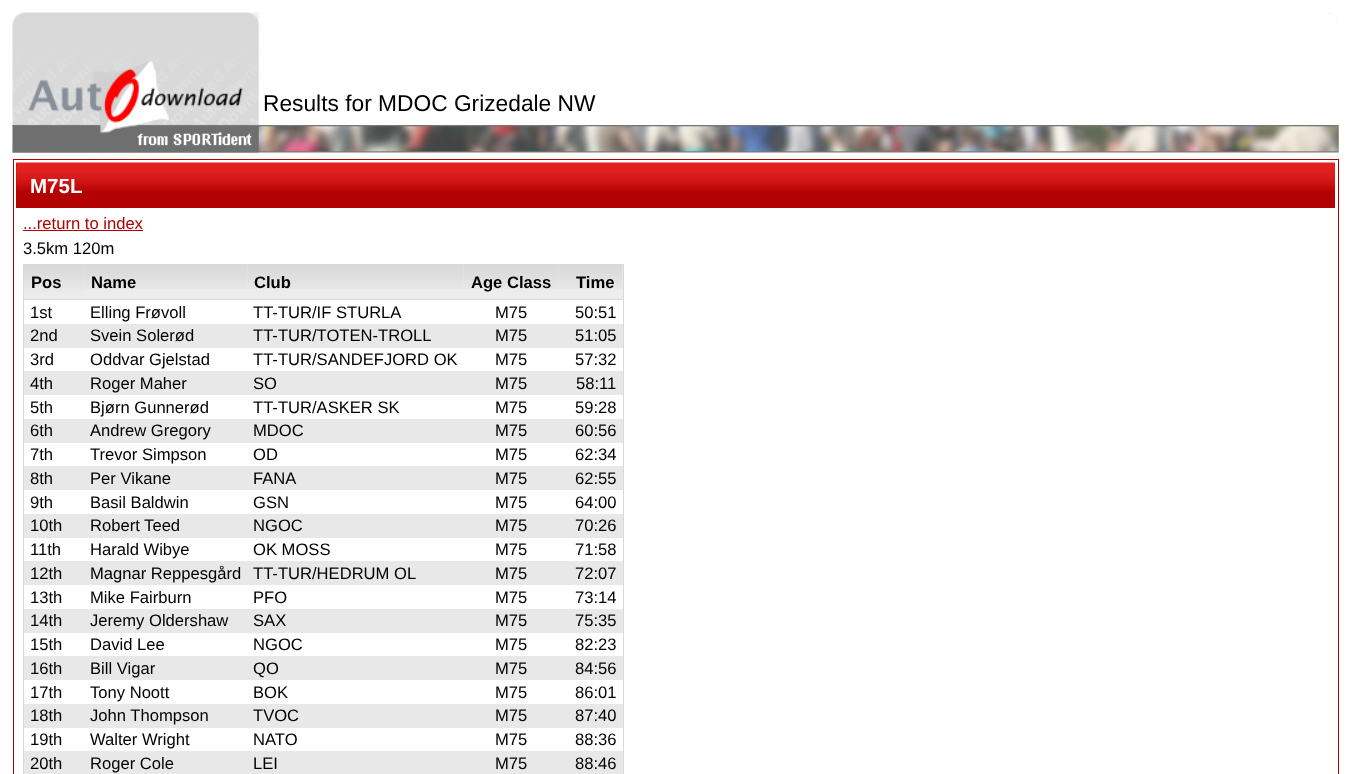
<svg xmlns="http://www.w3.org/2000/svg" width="1351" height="774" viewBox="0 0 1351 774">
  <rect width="100%" height="100%" fill="rgb(255,255,255)"/>
  <image x="12" y="125" width="1327" height="28" href="pic3.png"/>
  <image x="12" y="12" width="247" height="141" href="pic1.png"/>
  <image x="1327" y="12" width="12" height="12" href="pic2.png"/>
  <text x="263" y="111" font-family="Liberation Sans" font-size="22.75" fill="rgb(0,0,0)">Results for MDOC Grizedale NW</text>
  <rect x="13.5" y="159.5" width="1325" height="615" fill="none" stroke="rgb(179,2,2)"/>
  <rect x="16" y="163" width="1319" height="45" fill="rgb(179,2,2)"/>
  <image x="16" y="162" width="1319" height="29" href="pic4.png"/>
  <text x="30" y="193" font-family="Liberation Sans" font-size="20.5" font-weight="bold" fill="rgb(255,255,255)">M75L</text>
  <text x="23" y="229" font-family="Liberation Sans" font-size="16.6" fill="rgb(177,0,0)">...return to index</text>
  <rect x="23" y="230" width="120" height="1" fill="rgb(177,0,0)"/>
  <text x="23" y="254" font-family="Liberation Sans" font-size="16.6" fill="rgb(0,0,0)">3.5km 120m</text>
  <rect x="23.5" y="264.5" width="600" height="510" fill="none" stroke="rgb(217,217,217)"/>
  <rect x="24" y="265" width="599" height="34" fill="rgb(237,237,237)"/>
  <image x="23" y="265" width="61" height="32" href="pic5.png"/>
  <rect x="24" y="299" width="599" height="1" fill="rgb(217,217,217)"/>
  <text x="31" y="288" font-family="Liberation Sans" font-size="16.6" font-weight="bold" fill="rgb(0,0,0)">Pos</text>
  <image x="84" y="265" width="164" height="24" href="pic6.png"/>
  <text x="91" y="288" font-family="Liberation Sans" font-size="16.6" font-weight="bold" fill="rgb(0,0,0)">Name</text>
  <image x="247" y="265" width="217" height="24" href="pic7.png"/>
  <text x="254" y="288" font-family="Liberation Sans" font-size="16.6" font-weight="bold" fill="rgb(0,0,0)">Club</text>
  <image x="464" y="265" width="95" height="24" href="pic8.png"/>
  <text x="471" y="288" font-family="Liberation Sans" font-size="16.6" font-weight="bold" fill="rgb(0,0,0)">Age Class</text>
  <image x="559" y="265" width="64" height="24" href="pic9.png"/>
  <text x="576" y="288" font-family="Liberation Sans" font-size="16.6" font-weight="bold" fill="rgb(0,0,0)">Time</text>
  <g font-family="Liberation Sans" font-size="16.6" fill="rgb(0,0,0)">
    <text x="30" y="318">1st</text>
    <text x="90" y="318">Elling Frøvoll</text>
    <text x="253" y="318">TT-TUR/IF STURLA</text>
    <text x="495" y="318">M75</text>
    <text x="575" y="318">50:51</text>
  </g>
  <rect x="24" y="324" width="599" height="24" fill="rgb(232,232,232)"/>
  <g font-family="Liberation Sans" font-size="16.6" fill="rgb(0,0,0)">
    <text x="30" y="341">2nd</text>
    <text x="90" y="341">Svein Solerød</text>
    <text x="253" y="341">TT-TUR/TOTEN-TROLL</text>
    <text x="495" y="341">M75</text>
    <text x="575" y="341">51:05</text>
    <text x="30" y="365">3rd</text>
    <text x="90" y="365">Oddvar Gjelstad</text>
    <text x="253" y="365">TT-TUR/SANDEFJORD OK</text>
    <text x="495" y="365">M75</text>
    <text x="575" y="365">57:32</text>
  </g>
  <rect x="24" y="371" width="599" height="24" fill="rgb(232,232,232)"/>
  <g font-family="Liberation Sans" font-size="16.6" fill="rgb(0,0,0)">
    <text x="30" y="389">4th</text>
    <text x="90" y="389">Roger Maher</text>
    <text x="253" y="389">SO</text>
    <text x="495" y="389">M75</text>
    <text x="576" y="389">58:11</text>
    <text x="30" y="413">5th</text>
    <text x="90" y="413">Bjørn Gunnerød</text>
    <text x="253" y="413">TT-TUR/ASKER SK</text>
    <text x="495" y="413">M75</text>
    <text x="575" y="413">59:28</text>
  </g>
  <rect x="24" y="419" width="599" height="24" fill="rgb(232,232,232)"/>
  <g font-family="Liberation Sans" font-size="16.6" fill="rgb(0,0,0)">
    <text x="30" y="436">6th</text>
    <text x="90" y="436">Andrew Gregory</text>
    <text x="253" y="436">MDOC</text>
    <text x="495" y="436">M75</text>
    <text x="575" y="436">60:56</text>
    <text x="30" y="460">7th</text>
    <text x="90" y="460">Trevor Simpson</text>
    <text x="253" y="460">OD</text>
    <text x="495" y="460">M75</text>
    <text x="575" y="460">62:34</text>
  </g>
  <rect x="24" y="466" width="599" height="24" fill="rgb(232,232,232)"/>
  <g font-family="Liberation Sans" font-size="16.6" fill="rgb(0,0,0)">
    <text x="30" y="484">8th</text>
    <text x="90" y="484">Per Vikane</text>
    <text x="253" y="484">FANA</text>
    <text x="495" y="484">M75</text>
    <text x="575" y="484">62:55</text>
    <text x="30" y="508">9th</text>
    <text x="90" y="508">Basil Baldwin</text>
    <text x="253" y="508">GSN</text>
    <text x="495" y="508">M75</text>
    <text x="575" y="508">64:00</text>
  </g>
  <rect x="24" y="514" width="599" height="24" fill="rgb(232,232,232)"/>
  <g font-family="Liberation Sans" font-size="16.6" fill="rgb(0,0,0)">
    <text x="30" y="531">10th</text>
    <text x="90" y="531">Robert Teed</text>
    <text x="253" y="531">NGOC</text>
    <text x="495" y="531">M75</text>
    <text x="575" y="531">70:26</text>
    <text x="30" y="555">11th</text>
    <text x="90" y="555">Harald Wibye</text>
    <text x="253" y="555">OK MOSS</text>
    <text x="495" y="555">M75</text>
    <text x="575" y="555">71:58</text>
  </g>
  <rect x="24" y="561" width="599" height="24" fill="rgb(232,232,232)"/>
  <g font-family="Liberation Sans" font-size="16.6" fill="rgb(0,0,0)">
    <text x="30" y="579">12th</text>
    <text x="90" y="579">Magnar Reppesgård</text>
    <text x="253" y="579">TT-TUR/HEDRUM OL</text>
    <text x="495" y="579">M75</text>
    <text x="575" y="579">72:07</text>
    <text x="30" y="603">13th</text>
    <text x="90" y="603">Mike Fairburn</text>
    <text x="253" y="603">PFO</text>
    <text x="495" y="603">M75</text>
    <text x="575" y="603">73:14</text>
  </g>
  <rect x="24" y="609" width="599" height="24" fill="rgb(232,232,232)"/>
  <g font-family="Liberation Sans" font-size="16.6" fill="rgb(0,0,0)">
    <text x="30" y="626">14th</text>
    <text x="90" y="626">Jeremy Oldershaw</text>
    <text x="253" y="626">SAX</text>
    <text x="495" y="626">M75</text>
    <text x="575" y="626">75:35</text>
    <text x="30" y="650">15th</text>
    <text x="90" y="650">David Lee</text>
    <text x="253" y="650">NGOC</text>
    <text x="495" y="650">M75</text>
    <text x="575" y="650">82:23</text>
  </g>
  <rect x="24" y="656" width="599" height="24" fill="rgb(232,232,232)"/>
  <g font-family="Liberation Sans" font-size="16.6" fill="rgb(0,0,0)">
    <text x="30" y="674">16th</text>
    <text x="90" y="674">Bill Vigar</text>
    <text x="253" y="674">QO</text>
    <text x="495" y="674">M75</text>
    <text x="575" y="674">84:56</text>
    <text x="30" y="698">17th</text>
    <text x="90" y="698">Tony Noott</text>
    <text x="253" y="698">BOK</text>
    <text x="495" y="698">M75</text>
    <text x="575" y="698">86:01</text>
  </g>
  <rect x="24" y="704" width="599" height="24" fill="rgb(232,232,232)"/>
  <g font-family="Liberation Sans" font-size="16.6" fill="rgb(0,0,0)">
    <text x="30" y="721">18th</text>
    <text x="90" y="721">John Thompson</text>
    <text x="253" y="721">TVOC</text>
    <text x="495" y="721">M75</text>
    <text x="575" y="721">87:40</text>
    <text x="30" y="745">19th</text>
    <text x="90" y="745">Walter Wright</text>
    <text x="253" y="745">NATO</text>
    <text x="495" y="745">M75</text>
    <text x="575" y="745">88:36</text>
  </g>
  <rect x="24" y="751" width="599" height="23" fill="rgb(232,232,232)"/>
  <g font-family="Liberation Sans" font-size="16.6" fill="rgb(0,0,0)">
    <text x="30" y="769">20th</text>
    <text x="90" y="769">Roger Cole</text>
    <text x="253" y="769">LEI</text>
    <text x="495" y="769">M75</text>
    <text x="575" y="769">88:46</text>
  </g>
</svg>
